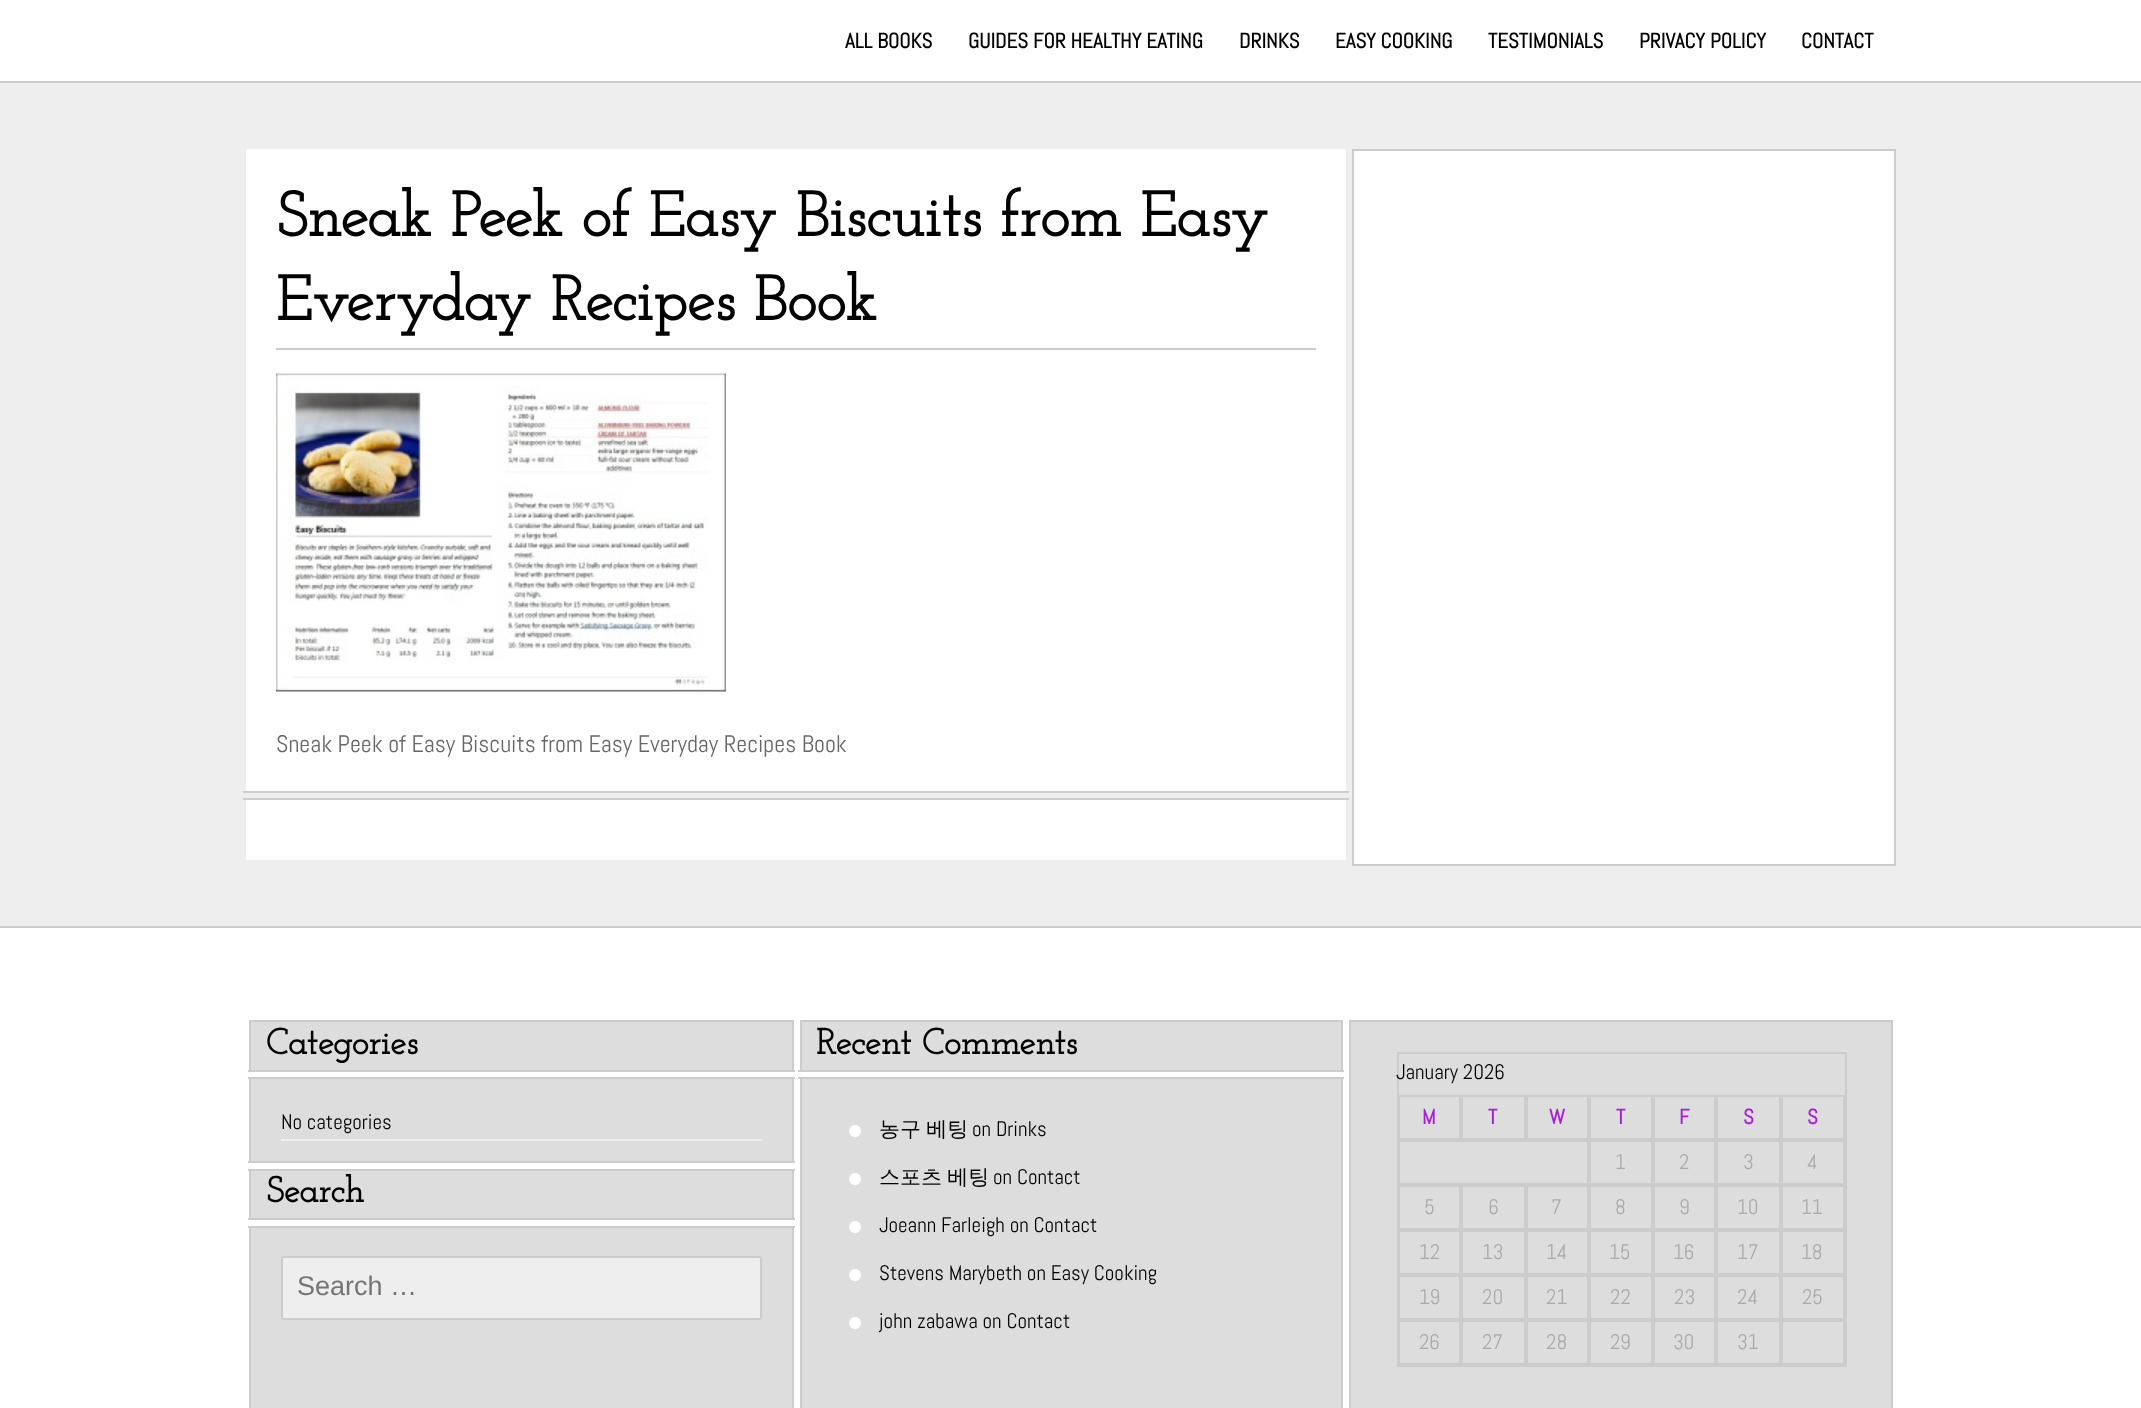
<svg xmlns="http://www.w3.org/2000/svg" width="2141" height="1408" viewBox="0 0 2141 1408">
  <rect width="100%" height="100%" fill="rgb(238,238,238)"/>
  <rect x="0" y="0" width="2141" height="81" fill="rgb(255,255,255)"/>
  <rect x="0" y="81" width="2141" height="2" fill="rgb(204,204,204)"/>
  <g font-family="Abel" font-size="21" font-weight="bold" fill="rgb(0,0,0)">
    <text x="845" y="48">ALL BOOKS</text>
    <text x="968" y="48">GUIDES FOR HEALTHY EATING</text>
    <text x="1239" y="48">DRINKS</text>
    <text x="1335" y="48">EASY COOKING</text>
    <text x="1488" y="48">TESTIMONIALS</text>
    <text x="1639" y="48">PRIVACY POLICY</text>
    <text x="1801" y="48">CONTACT</text>
  </g>
  <rect x="246" y="149" width="1100" height="711" fill="rgb(255,255,255)"/>
  <rect x="276" y="348" width="1040" height="2" fill="rgb(204,204,204)"/>
  <g font-family="Josefin Slab" font-size="63" font-weight="bold" fill="rgb(0,0,0)">
    <text>
      <tspan x="276" y="236">Sneak Peek of Easy Biscuits from Easy</tspan>
      <tspan x="276" y="320">Everyday Recipes Book</tspan>
    </text>
  </g>
  <image x="276" y="373" width="450" height="319" href="pic1.png"/>
  <text x="276" y="752" font-family="Abel" font-size="24" fill="rgb(102,102,102)">Sneak Peek of Easy Biscuits from Easy Everyday Recipes Book</text>
  <rect x="243" y="793" width="1106" height="5" fill="rgb(238,238,238)"/>
  <rect x="243" y="791" width="1106" height="2" fill="rgb(204,204,204)"/>
  <rect x="243" y="798" width="1106" height="2" fill="rgb(204,204,204)"/>
  <rect x="1353" y="150" width="542" height="715" fill="rgb(255,255,255)" stroke="rgb(204,204,204)" stroke-width="2"/>
  <rect x="0" y="928" width="2141" height="480" fill="rgb(255,255,255)"/>
  <rect x="0" y="926" width="2141" height="2" fill="rgb(204,204,204)"/>
  <rect x="250" y="1021" width="543" height="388" fill="rgb(221,221,221)" stroke="rgb(204,204,204)" stroke-width="2"/>
  <text x="266" y="1054" font-family="Josefin Slab" font-size="36" font-weight="bold" fill="rgb(0,0,0)">Categories</text>
  <rect x="248" y="1072" width="547" height="5" fill="rgb(255,255,255)"/>
  <rect x="248" y="1070" width="547" height="2" fill="rgb(204,204,204)"/>
  <rect x="248" y="1077" width="547" height="2" fill="rgb(204,204,204)"/>
  <rect x="281" y="1139" width="481" height="2" fill="rgb(238,238,238)"/>
  <text x="281" y="1129" font-family="Abel" font-size="21" fill="rgb(0,0,0)">No categories</text>
  <rect x="248" y="1163" width="547" height="6" fill="rgb(255,255,255)"/>
  <rect x="248" y="1161" width="547" height="2" fill="rgb(204,204,204)"/>
  <rect x="248" y="1169" width="547" height="2" fill="rgb(204,204,204)"/>
  <text x="266" y="1202" font-family="Josefin Slab" font-size="36" font-weight="bold" fill="rgb(0,0,0)">Search</text>
  <rect x="248" y="1220" width="547" height="6" fill="rgb(255,255,255)"/>
  <rect x="248" y="1218" width="547" height="2" fill="rgb(204,204,204)"/>
  <rect x="248" y="1226" width="547" height="2" fill="rgb(204,204,204)"/>
  <rect x="282" y="1257" width="479" height="62" rx="2" fill="rgb(238,238,238)" stroke="rgb(204,204,204)" stroke-width="2"/>
  <text x="297" y="1295" font-family="Liberation Sans" font-size="27" fill="rgb(117,117,117)">Search …</text>
  <rect x="801" y="1021" width="541" height="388" fill="rgb(221,221,221)" stroke="rgb(204,204,204)" stroke-width="2"/>
  <text x="816" y="1054" font-family="Josefin Slab" font-size="36" font-weight="bold" fill="rgb(0,0,0)">Recent Comments</text>
  <rect x="798" y="1072" width="546" height="5" fill="rgb(255,255,255)"/>
  <rect x="798" y="1070" width="546" height="2" fill="rgb(204,204,204)"/>
  <rect x="798" y="1077" width="546" height="2" fill="rgb(204,204,204)"/>
  <image x="849" y="1125" width="12" height="12" href="pic2.png"/>
  <text x="879" y="1136" word-spacing="-1" font-family="WenQuanYi Zen Hei" font-size="21" font-weight="500" fill="rgb(0,0,0)">농구 베팅</text>
  <text x="972" y="1136" font-family="Abel" font-size="21" fill="rgb(0,0,0)">on Drinks</text>
  <image x="849" y="1173" width="12" height="12" href="pic2.png"/>
  <text x="879" y="1184" word-spacing="-1" font-family="WenQuanYi Zen Hei" font-size="21" font-weight="500" fill="rgb(0,0,0)">스포츠 베팅</text>
  <text x="993" y="1184" font-family="Abel" font-size="21" fill="rgb(0,0,0)">on Contact</text>
  <image x="849" y="1221" width="12" height="12" href="pic2.png"/>
  <text x="879" y="1232" font-family="Abel" font-size="21" fill="rgb(0,0,0)">Joeann Farleigh on Contact</text>
  <image x="849" y="1269" width="12" height="12" href="pic2.png"/>
  <text x="879" y="1280" font-family="Abel" font-size="21" fill="rgb(0,0,0)">Stevens Marybeth on Easy Cooking</text>
  <image x="849" y="1317" width="12" height="12" href="pic2.png"/>
  <text x="879" y="1328" font-family="Abel" font-size="21" fill="rgb(0,0,0)">john zabawa on Contact</text>
  <rect x="1350" y="1021" width="542" height="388" fill="rgb(221,221,221)" stroke="rgb(204,204,204)" stroke-width="2"/>
  <rect x="1398" y="1053" width="448" height="313" fill="none" stroke="rgb(204,204,204)" stroke-width="2"/>
  <text x="1396" y="1079" font-family="Abel" font-size="21" fill="rgb(0,0,0)">January 2026</text>
  <rect x="1399" y="1096" width="61" height="43" fill="none" stroke="rgb(204,204,204)" stroke-width="2"/>
  <text x="1422" y="1124" font-family="Abel" font-size="21" font-weight="bold" fill="rgb(167,31,221)">M</text>
  <rect x="1462" y="1096" width="63" height="43" fill="none" stroke="rgb(204,204,204)" stroke-width="2"/>
  <text x="1488" y="1124" font-family="Abel" font-size="21" font-weight="bold" fill="rgb(167,31,221)">T</text>
  <rect x="1527" y="1096" width="61" height="43" fill="none" stroke="rgb(204,204,204)" stroke-width="2"/>
  <text x="1549" y="1124" font-family="Abel" font-size="21" font-weight="bold" fill="rgb(167,31,221)">W</text>
  <rect x="1590" y="1096" width="62" height="43" fill="none" stroke="rgb(204,204,204)" stroke-width="2"/>
  <text x="1616" y="1124" font-family="Abel" font-size="21" font-weight="bold" fill="rgb(167,31,221)">T</text>
  <rect x="1654" y="1096" width="61" height="43" fill="none" stroke="rgb(204,204,204)" stroke-width="2"/>
  <text x="1679" y="1124" font-family="Abel" font-size="21" font-weight="bold" fill="rgb(167,31,221)">F</text>
  <rect x="1717" y="1096" width="63" height="43" fill="none" stroke="rgb(204,204,204)" stroke-width="2"/>
  <text x="1743" y="1124" font-family="Abel" font-size="21" font-weight="bold" fill="rgb(167,31,221)">S</text>
  <rect x="1782" y="1096" width="62" height="43" fill="none" stroke="rgb(204,204,204)" stroke-width="2"/>
  <text x="1807" y="1124" font-family="Abel" font-size="21" font-weight="bold" fill="rgb(167,31,221)">S</text>
  <rect x="1399" y="1141" width="189" height="43" fill="none" stroke="rgb(204,204,204)" stroke-width="2"/>
  <rect x="1590" y="1141" width="62" height="43" fill="none" stroke="rgb(204,204,204)" stroke-width="2"/>
  <text x="1615" y="1169" font-family="Abel" font-size="21" fill="rgb(170,170,170)">1</text>
  <rect x="1654" y="1141" width="61" height="43" fill="none" stroke="rgb(204,204,204)" stroke-width="2"/>
  <text x="1679" y="1169" font-family="Abel" font-size="21" fill="rgb(170,170,170)">2</text>
  <rect x="1717" y="1141" width="63" height="43" fill="none" stroke="rgb(204,204,204)" stroke-width="2"/>
  <text x="1743" y="1169" font-family="Abel" font-size="21" fill="rgb(170,170,170)">3</text>
  <rect x="1782" y="1141" width="62" height="43" fill="none" stroke="rgb(204,204,204)" stroke-width="2"/>
  <text x="1807" y="1169" font-family="Abel" font-size="21" fill="rgb(170,170,170)">4</text>
  <rect x="1399" y="1186" width="61" height="43" fill="none" stroke="rgb(204,204,204)" stroke-width="2"/>
  <text x="1424" y="1214" font-family="Abel" font-size="21" fill="rgb(170,170,170)">5</text>
  <rect x="1462" y="1186" width="63" height="43" fill="none" stroke="rgb(204,204,204)" stroke-width="2"/>
  <text x="1488" y="1214" font-family="Abel" font-size="21" fill="rgb(170,170,170)">6</text>
  <rect x="1527" y="1186" width="61" height="43" fill="none" stroke="rgb(204,204,204)" stroke-width="2"/>
  <text x="1551" y="1214" font-family="Abel" font-size="21" fill="rgb(170,170,170)">7</text>
  <rect x="1590" y="1186" width="62" height="43" fill="none" stroke="rgb(204,204,204)" stroke-width="2"/>
  <text x="1615" y="1214" font-family="Abel" font-size="21" fill="rgb(170,170,170)">8</text>
  <rect x="1654" y="1186" width="61" height="43" fill="none" stroke="rgb(204,204,204)" stroke-width="2"/>
  <text x="1679" y="1214" font-family="Abel" font-size="21" fill="rgb(170,170,170)">9</text>
  <rect x="1717" y="1186" width="63" height="43" fill="none" stroke="rgb(204,204,204)" stroke-width="2"/>
  <text x="1737" y="1214" font-family="Abel" font-size="21" fill="rgb(170,170,170)">10</text>
  <rect x="1782" y="1186" width="62" height="43" fill="none" stroke="rgb(204,204,204)" stroke-width="2"/>
  <text x="1801" y="1214" font-family="Abel" font-size="21" fill="rgb(170,170,170)">11</text>
  <rect x="1399" y="1231" width="61" height="43" fill="none" stroke="rgb(204,204,204)" stroke-width="2"/>
  <text x="1419" y="1259" font-family="Abel" font-size="21" fill="rgb(170,170,170)">12</text>
  <rect x="1462" y="1231" width="63" height="43" fill="none" stroke="rgb(204,204,204)" stroke-width="2"/>
  <text x="1482" y="1259" font-family="Abel" font-size="21" fill="rgb(170,170,170)">13</text>
  <rect x="1527" y="1231" width="61" height="43" fill="none" stroke="rgb(204,204,204)" stroke-width="2"/>
  <text x="1546" y="1259" font-family="Abel" font-size="21" fill="rgb(170,170,170)">14</text>
  <rect x="1590" y="1231" width="62" height="43" fill="none" stroke="rgb(204,204,204)" stroke-width="2"/>
  <text x="1609" y="1259" font-family="Abel" font-size="21" fill="rgb(170,170,170)">15</text>
  <rect x="1654" y="1231" width="61" height="43" fill="none" stroke="rgb(204,204,204)" stroke-width="2"/>
  <text x="1673" y="1259" font-family="Abel" font-size="21" fill="rgb(170,170,170)">16</text>
  <rect x="1717" y="1231" width="63" height="43" fill="none" stroke="rgb(204,204,204)" stroke-width="2"/>
  <text x="1737" y="1259" font-family="Abel" font-size="21" fill="rgb(170,170,170)">17</text>
  <rect x="1782" y="1231" width="62" height="43" fill="none" stroke="rgb(204,204,204)" stroke-width="2"/>
  <text x="1801" y="1259" font-family="Abel" font-size="21" fill="rgb(170,170,170)">18</text>
  <rect x="1399" y="1276" width="61" height="43" fill="none" stroke="rgb(204,204,204)" stroke-width="2"/>
  <text x="1419" y="1304" font-family="Abel" font-size="21" fill="rgb(170,170,170)">19</text>
  <rect x="1462" y="1276" width="63" height="43" fill="none" stroke="rgb(204,204,204)" stroke-width="2"/>
  <text x="1482" y="1304" font-family="Abel" font-size="21" fill="rgb(170,170,170)">20</text>
  <rect x="1527" y="1276" width="61" height="43" fill="none" stroke="rgb(204,204,204)" stroke-width="2"/>
  <text x="1546" y="1304" font-family="Abel" font-size="21" fill="rgb(170,170,170)">21</text>
  <rect x="1590" y="1276" width="62" height="43" fill="none" stroke="rgb(204,204,204)" stroke-width="2"/>
  <text x="1610" y="1304" font-family="Abel" font-size="21" fill="rgb(170,170,170)">22</text>
  <rect x="1654" y="1276" width="61" height="43" fill="none" stroke="rgb(204,204,204)" stroke-width="2"/>
  <text x="1674" y="1304" font-family="Abel" font-size="21" fill="rgb(170,170,170)">23</text>
  <rect x="1717" y="1276" width="63" height="43" fill="none" stroke="rgb(204,204,204)" stroke-width="2"/>
  <text x="1737" y="1304" font-family="Abel" font-size="21" fill="rgb(170,170,170)">24</text>
  <rect x="1782" y="1276" width="62" height="43" fill="none" stroke="rgb(204,204,204)" stroke-width="2"/>
  <text x="1802" y="1304" font-family="Abel" font-size="21" fill="rgb(170,170,170)">25</text>
  <rect x="1399" y="1321" width="61" height="43" fill="none" stroke="rgb(204,204,204)" stroke-width="2"/>
  <text x="1419" y="1349" font-family="Abel" font-size="21" fill="rgb(170,170,170)">26</text>
  <rect x="1462" y="1321" width="63" height="43" fill="none" stroke="rgb(204,204,204)" stroke-width="2"/>
  <text x="1482" y="1349" font-family="Abel" font-size="21" fill="rgb(170,170,170)">27</text>
  <rect x="1527" y="1321" width="61" height="43" fill="none" stroke="rgb(204,204,204)" stroke-width="2"/>
  <text x="1546" y="1349" font-family="Abel" font-size="21" fill="rgb(170,170,170)">28</text>
  <rect x="1590" y="1321" width="62" height="43" fill="none" stroke="rgb(204,204,204)" stroke-width="2"/>
  <text x="1610" y="1349" font-family="Abel" font-size="21" fill="rgb(170,170,170)">29</text>
  <rect x="1654" y="1321" width="61" height="43" fill="none" stroke="rgb(204,204,204)" stroke-width="2"/>
  <text x="1673" y="1349" font-family="Abel" font-size="21" fill="rgb(170,170,170)">30</text>
  <rect x="1717" y="1321" width="63" height="43" fill="none" stroke="rgb(204,204,204)" stroke-width="2"/>
  <text x="1737" y="1349" font-family="Abel" font-size="21" fill="rgb(170,170,170)">31</text>
  <rect x="1782" y="1321" width="62" height="43" fill="none" stroke="rgb(204,204,204)" stroke-width="2"/>
</svg>
